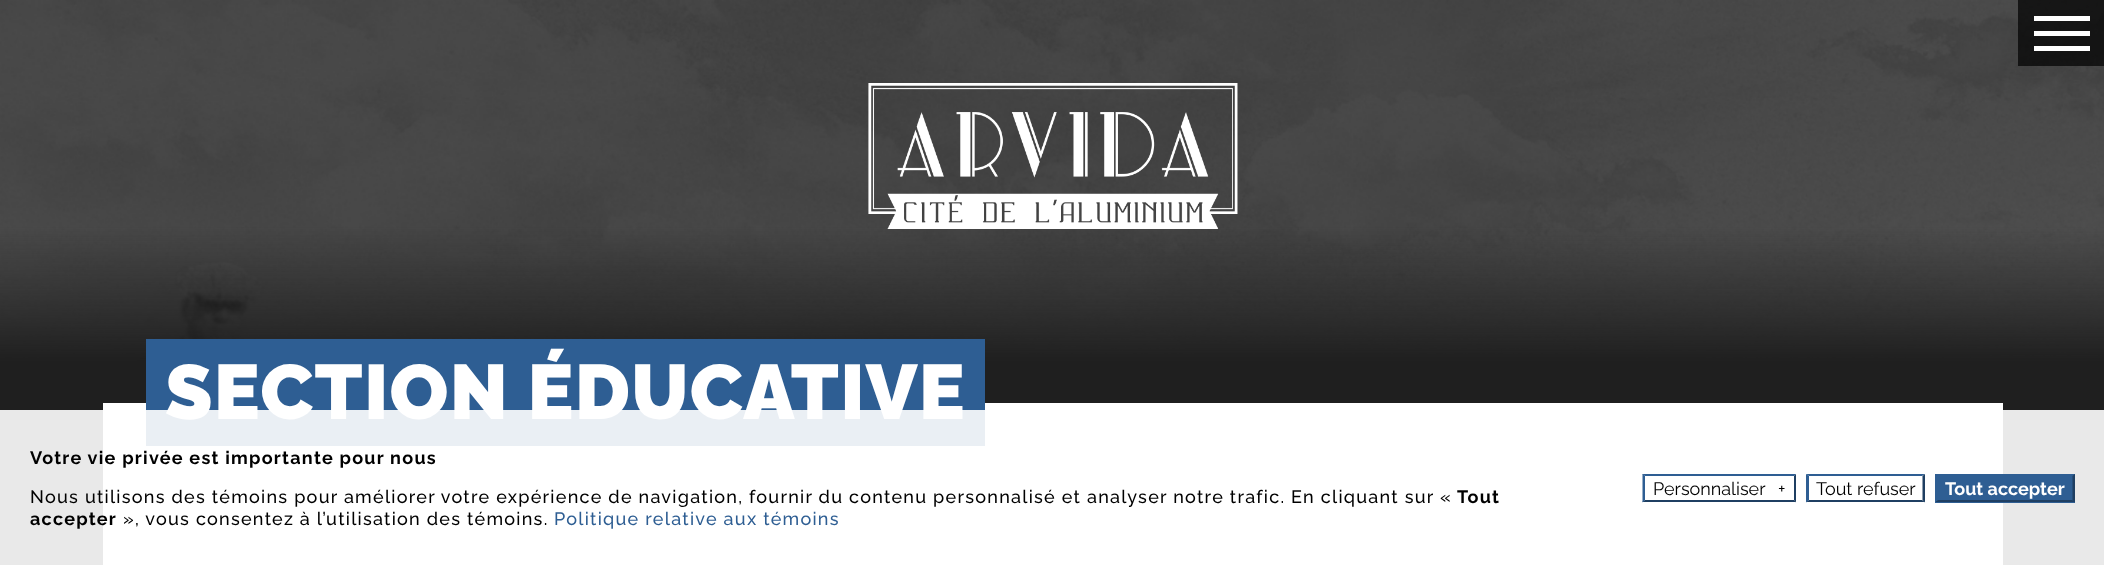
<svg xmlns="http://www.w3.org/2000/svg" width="2104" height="565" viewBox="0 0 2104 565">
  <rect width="100%" height="100%" fill="rgb(255,255,255)"/>
  <image x="0" y="0" width="2104" height="565" href="pic1.png"/>
  <rect x="2018" y="0" width="86" height="66" fill="rgba(0,0,0,0.7)"/>
  <rect x="2034" y="16" width="56" height="5" fill="rgb(255,255,255)"/>
  <rect x="2034" y="31" width="56" height="5" fill="rgb(255,255,255)"/>
  <rect x="2034" y="46" width="56" height="5" fill="rgb(255,255,255)"/>
  <image x="868" y="83" width="370" height="146" href="pic2.png"/>
  <rect x="103" y="403" width="1900" height="162" fill="rgb(255,255,255)"/>
  <rect x="146" y="339" width="839" height="107" fill="rgb(46,94,147)"/>
  <text x="165" y="419" font-family="Raleway" font-size="77" font-weight="900" letter-spacing="1.25" fill="rgb(255,255,255)">SECTION ÉDUCATIVE</text>
  <rect x="0" y="410" width="2104" height="155" fill="rgba(255,255,255,0.9)"/>
  <text x="30" y="464" font-family="Raleway" font-size="18" font-weight="bold" letter-spacing="1.25" fill="rgb(0,0,0)">Votre vie privée est importante pour nous</text>
  <text x="30" y="503" font-family="Raleway" font-size="18" font-weight="500" letter-spacing="1.25" fill="rgb(0,0,0)">Nous utilisons des témoins pour améliorer votre expérience de navigation, fournir du contenu personnalisé et analyser notre trafic. En cliquant sur «</text>
  <g font-family="Raleway" font-size="18" font-weight="bold" letter-spacing="1.25" fill="rgb(0,0,0)">
    <text x="1457" y="503">Tout</text>
    <text x="30" y="525">accepter</text>
  </g>
  <text x="123" y="525" font-family="Raleway" font-size="18" font-weight="500" letter-spacing="1.25" fill="rgb(0,0,0)">», vous consentez à l’utilisation des témoins.</text>
  <text x="554" y="525" font-family="Raleway" font-size="18" font-weight="500" letter-spacing="1.25" fill="rgb(46,94,147)">Politique relative aux témoins</text>
  <path d="M1642 474H1796L1794 476H1645Z" fill="rgb(46,94,147)"/>
  <path d="M1796 474V502.5L1794 500V476Z" fill="rgb(31,63,98)"/>
  <path d="M1796 502H1642L1645 500H1794Z" fill="rgb(31,63,98)"/>
  <path d="M1642.5 502.5V474L1645 476V500Z" fill="rgb(46,94,147)"/>
  <g font-family="Raleway" font-size="18" fill="rgb(0,0,0)">
    <text x="1653" y="495">Personnaliser</text>
    <text x="1778" y="495">+</text>
  </g>
  <path d="M1806 474H1925L1922 476H1809Z" fill="rgb(46,94,147)"/>
  <path d="M1925 474V502.5L1922.5 500V476Z" fill="rgb(31,63,98)"/>
  <path d="M1925 502H1806L1809 500H1922Z" fill="rgb(31,63,98)"/>
  <path d="M1806 502.5V474L1809 476V500Z" fill="rgb(46,94,147)"/>
  <text x="1816" y="495" font-family="Raleway" font-size="18" fill="rgb(0,0,0)">Tout refuser</text>
  <rect x="1935" y="474" width="140" height="29" fill="rgb(46,94,147)"/>
  <path d="M2075 474V502.5L2072.5 500V476Z" fill="rgb(31,63,98)"/>
  <path d="M2075 502H1935L1938 500H2072Z" fill="rgb(31,63,98)"/>
  <path d="M1935 502.5V474L1937.5 476V500Z" fill="rgb(46,94,147)"/>
  <text x="1945" y="495" font-family="Raleway" font-size="18" font-weight="bold" fill="rgb(255,255,255)">Tout accepter</text>
</svg>
